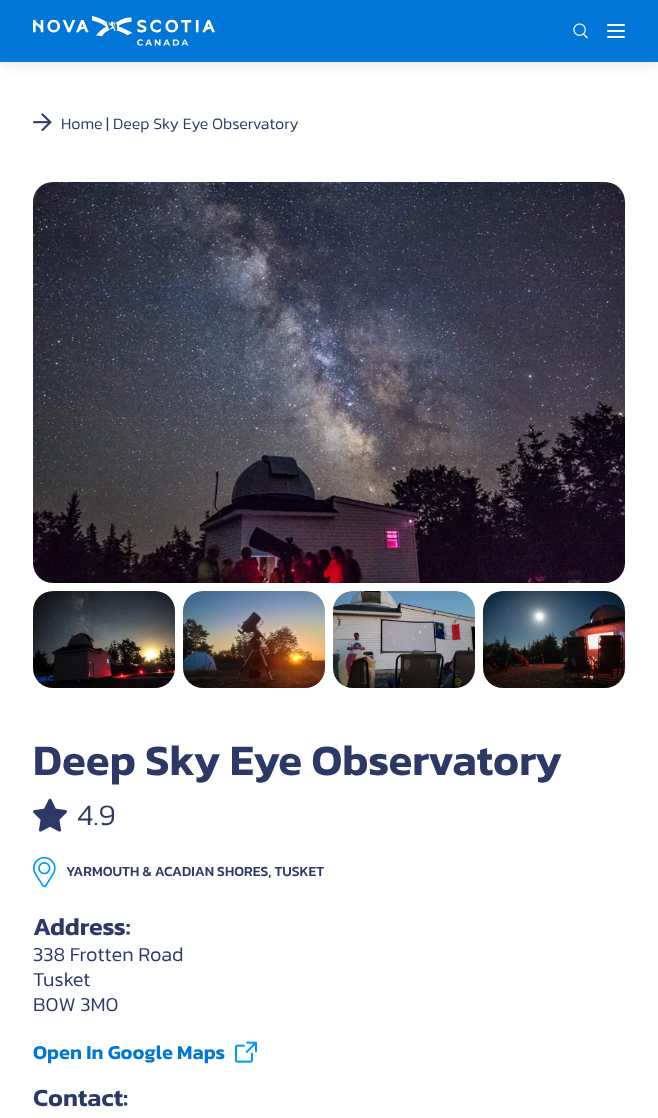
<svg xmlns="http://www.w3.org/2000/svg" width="658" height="1118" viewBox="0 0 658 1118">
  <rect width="100%" height="100%" fill="rgb(255,255,255)"/>
  <rect x="0" y="-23" width="658" height="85" fill="rgba(0,0,0,0.15)" filter="blur(7.5px)"/>
  <rect x="0" y="0" width="658" height="62" fill="rgb(0,118,214)"/>
  <image x="573" y="23" width="15" height="16" href="pic1.png"/>
  <rect x="607" y="24" width="18" height="2" rx="1" fill="rgb(255,255,255)"/>
  <rect x="607" y="30" width="18" height="2" rx="1" fill="rgb(255,255,255)"/>
  <rect x="607" y="36" width="18" height="2" rx="1" fill="rgb(255,255,255)"/>
  <image x="33" y="16" width="182" height="30" href="pic2.png"/>
  <image x="33" y="113" width="19" height="19" href="pic3.png"/>
  <g font-family="Kanit" font-size="16" font-weight="300" fill="rgb(44,57,103)">
    <text x="61" y="129">Home |</text>
    <text x="113" y="129">Deep Sky Eye Observatory</text>
  </g>
  <image x="33" y="182" width="592" height="401" href="pic4.png"/>
  <image x="33" y="591" width="142" height="97" href="pic5.png"/>
  <image x="183" y="591" width="142" height="97" href="pic6.png"/>
  <image x="333" y="591" width="142" height="97" href="pic7.png"/>
  <image x="483" y="591" width="142" height="97" href="pic8.png"/>
  <text x="33" y="775" font-family="Kanit" font-size="43.7" font-weight="600" fill="rgb(44,57,103)">Deep Sky Eye Observatory</text>
  <image x="33" y="798" width="34" height="34" href="pic9.png"/>
  <text x="77" y="825" font-family="Kanit" font-size="30" font-weight="300" fill="rgb(44,57,103)">4.9</text>
  <image x="33" y="856" width="23" height="32" href="pic10.png"/>
  <text x="66" y="876" font-family="Kanit" font-size="14" font-weight="500" fill="rgb(44,57,103)">YARMOUTH &amp; ACADIAN SHORES, TUSKET</text>
  <text x="33" y="935" font-family="Kanit" font-size="25" font-weight="600" fill="rgb(44,57,103)">Address:</text>
  <g font-family="Kanit" font-size="20" font-weight="300" fill="rgb(44,57,103)">
    <text>
      <tspan x="33" y="961">338 Frotten Road</tspan>
      <tspan x="33" y="986">Tusket</tspan>
      <tspan x="33" y="1011">B0W 3M0</tspan>
    </text>
  </g>
  <text x="33" y="1059" font-family="Kanit" font-size="20" font-weight="600" fill="rgb(0,118,214)">Open In Google Maps</text>
  <image x="235" y="1041" width="22" height="22" href="pic11.png"/>
  <text x="33" y="1106" font-family="Kanit" font-size="25" font-weight="600" fill="rgb(44,57,103)">Contact:</text>
</svg>
